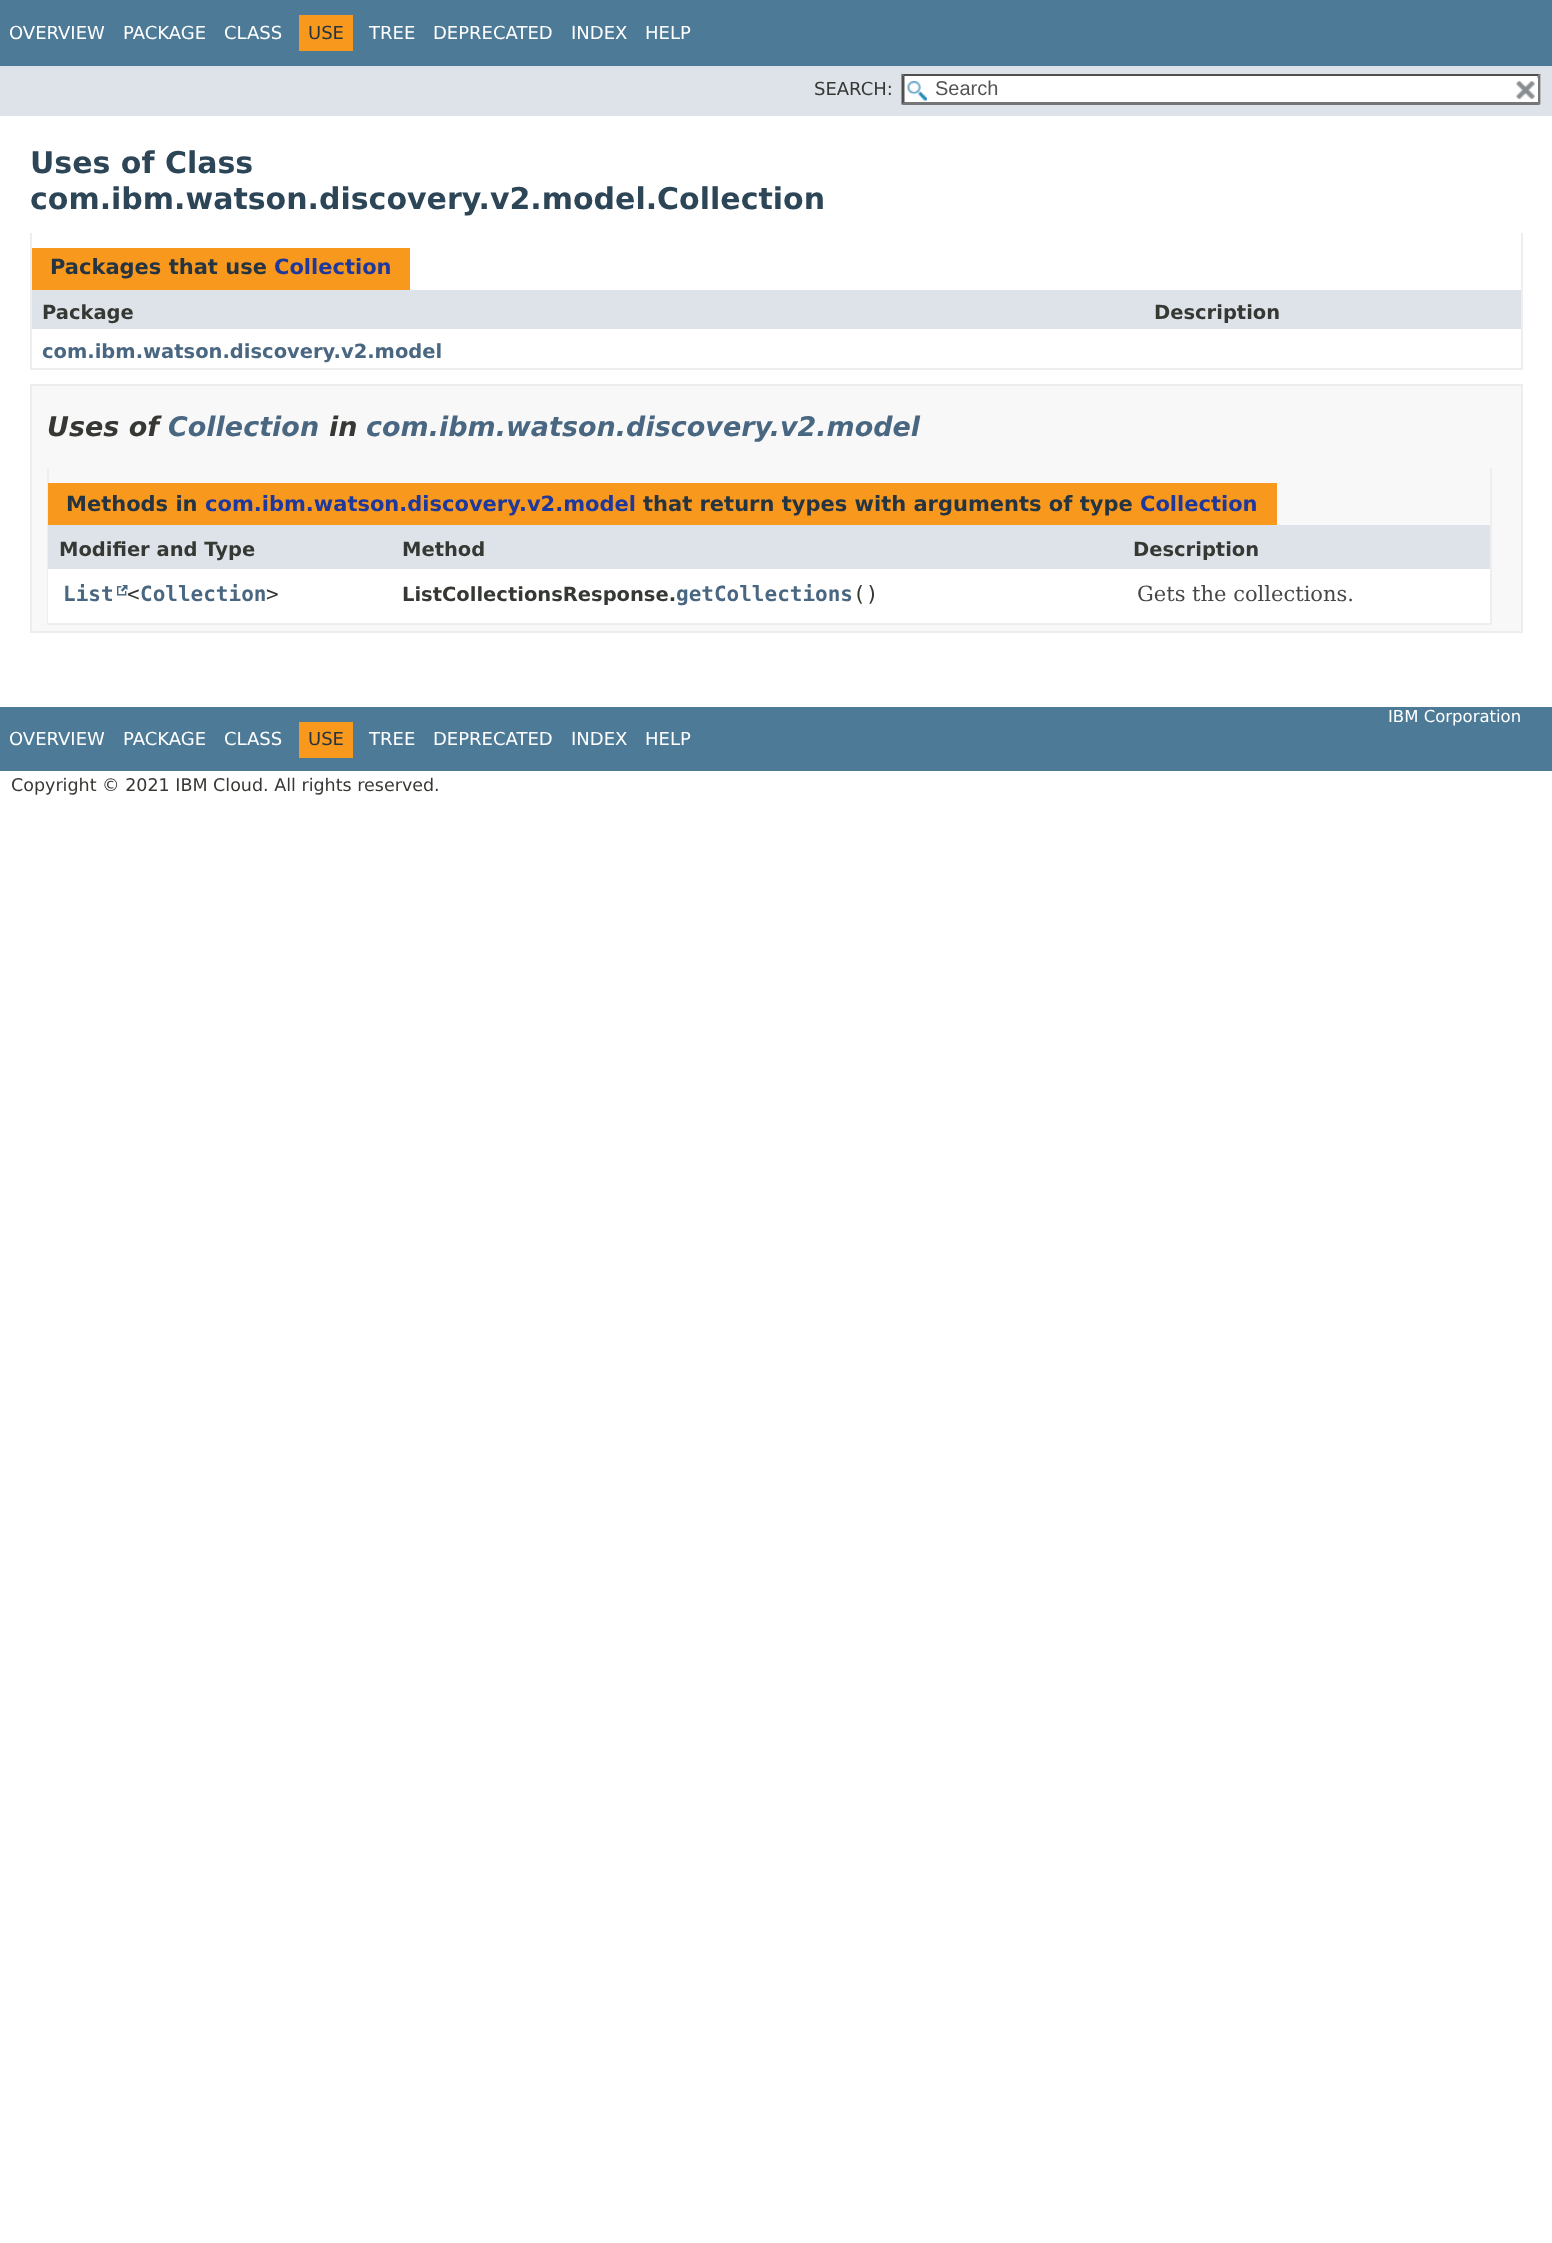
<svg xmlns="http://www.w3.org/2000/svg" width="1552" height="2243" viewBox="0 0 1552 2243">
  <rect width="100%" height="100%" fill="rgb(255,255,255)"/>
  <rect x="0" y="0" width="1552" height="66" fill="rgb(77,122,151)"/>
  <g font-family="DejaVu Sans" font-size="18" fill="rgb(255,255,255)">
    <text x="9" y="39">OVERVIEW</text>
    <text x="123" y="39">PACKAGE</text>
    <text x="224" y="39">CLASS</text>
  </g>
  <rect x="299" y="15" width="54" height="36" fill="rgb(248,152,29)"/>
  <text x="308" y="39" font-family="DejaVu Sans" font-size="18" fill="rgb(37,52,65)">USE</text>
  <g font-family="DejaVu Sans" font-size="18" fill="rgb(255,255,255)">
    <text x="369" y="39">TREE</text>
    <text x="433" y="39">DEPRECATED</text>
    <text x="571" y="39">INDEX</text>
    <text x="645" y="39">HELP</text>
  </g>
  <rect x="0" y="66" width="1552" height="50" fill="rgb(222,227,233)"/>
  <text x="814" y="95" font-family="DejaVu Sans" font-size="18" fill="rgb(53,56,51)">SEARCH:</text>
  <rect x="902" y="74" width="639" height="31" fill="rgb(255,255,255)"/>
  <image x="907" y="81" width="20" height="20" href="pic1.png"/>
  <path d="M902 74H1540L1538 76H904Z" fill="rgb(79,79,79)"/>
  <path d="M1540.5 73.5V105L1537.5 102V76.5Z" fill="rgb(118,118,118)"/>
  <path d="M1540 105H902L904 102H1538Z" fill="rgb(118,118,118)"/>
  <path d="M901.5 105V73.5L904.5 76.5V102Z" fill="rgb(79,79,79)"/>
  <text x="935" y="95" font-family="Liberation Sans" font-size="20" fill="rgb(84,84,84)">Search</text>
  <rect x="1537" y="78" width="1" height="24" fill="rgb(255,255,255)"/>
  <image x="1515" y="81" width="20" height="19" href="pic2.png"/>
  <g font-family="DejaVu Sans" font-size="30" font-weight="bold" fill="rgb(44,69,87)">
    <text>
      <tspan x="30" y="173">Uses of Class</tspan>
      <tspan x="30" y="209">com.ibm.watson.discovery.v2.model.Collection</tspan>
    </text>
  </g>
  <rect x="1521" y="233" width="2" height="136" fill="rgb(238,238,238)"/>
  <rect x="30" y="368" width="1493" height="2" fill="rgb(238,238,238)"/>
  <rect x="30" y="233" width="2" height="136" fill="rgb(238,238,238)"/>
  <rect x="32" y="248" width="378" height="42" fill="rgb(248,152,29)"/>
  <text x="50" y="274" font-family="DejaVu Sans" font-size="21" font-weight="bold" fill="rgb(37,52,65)">Packages that use</text>
  <text x="274" y="274" font-family="DejaVu Sans" font-size="21" font-weight="bold" fill="rgb(31,56,156)">Collection</text>
  <rect x="32" y="290" width="1489" height="39" fill="rgb(222,227,233)"/>
  <g font-family="DejaVu Sans" font-size="19.5" font-weight="bold" fill="rgb(53,56,51)">
    <text x="42" y="319">Package</text>
    <text x="1154" y="319">Description</text>
  </g>
  <text x="42" y="358" font-family="DejaVu Sans" font-size="19.5" font-weight="bold" fill="rgb(74,103,130)">com.ibm.watson.discovery.v2.model</text>
  <rect x="31" y="385" width="1491" height="247" fill="rgb(248,248,248)" stroke="rgb(237,237,237)" stroke-width="2"/>
  <text x="47" y="436" font-family="DejaVu Sans" font-size="27" font-weight="bold" font-style="italic" fill="rgb(53,56,51)">Uses of</text>
  <text x="168" y="436" font-family="DejaVu Sans" font-size="27" font-weight="bold" font-style="italic" fill="rgb(74,103,130)">Collection</text>
  <text x="329" y="436" font-family="DejaVu Sans" font-size="27" font-weight="bold" font-style="italic" fill="rgb(53,56,51)">in</text>
  <text x="366" y="436" font-family="DejaVu Sans" font-size="27" font-weight="bold" font-style="italic" fill="rgb(74,103,130)">com.ibm.watson.discovery.v2.model</text>
  <rect x="1490" y="468" width="2" height="156" fill="rgb(238,238,238)"/>
  <rect x="47" y="623" width="1444" height="2" fill="rgb(238,238,238)"/>
  <rect x="47" y="468" width="2" height="156" fill="rgb(238,238,238)"/>
  <rect x="48" y="483" width="1229" height="42" fill="rgb(248,152,29)"/>
  <text x="66" y="511" font-family="DejaVu Sans" font-size="21" font-weight="bold" fill="rgb(37,52,65)">Methods in</text>
  <text x="205" y="511" font-family="DejaVu Sans" font-size="21" font-weight="bold" fill="rgb(31,56,156)">com.ibm.watson.discovery.v2.model</text>
  <text x="643" y="511" font-family="DejaVu Sans" font-size="21" font-weight="bold" fill="rgb(37,52,65)">that return types with arguments of type</text>
  <text x="1140" y="511" font-family="DejaVu Sans" font-size="21" font-weight="bold" fill="rgb(31,56,156)">Collection</text>
  <rect x="48" y="525" width="1442" height="44" fill="rgb(222,227,233)"/>
  <g font-family="DejaVu Sans" font-size="19.5" font-weight="bold" fill="rgb(53,56,51)">
    <text x="59" y="556">Modifier and Type</text>
    <text x="402" y="556">Method</text>
    <text x="1133" y="556">Description</text>
  </g>
  <rect x="48" y="569" width="1442" height="54" fill="rgb(255,255,255)"/>
  <text x="63" y="601" font-family="DejaVu Sans Mono" font-size="21" font-weight="bold" fill="rgb(74,103,130)">List</text>
  <image x="117" y="585" width="11" height="11" href="pic3.png"/>
  <text x="127" y="601" font-family="DejaVu Sans Mono" font-size="21" fill="rgb(53,56,51)">&lt;</text>
  <text x="140" y="601" font-family="DejaVu Sans Mono" font-size="21" font-weight="bold" fill="rgb(74,103,130)">Collection</text>
  <text x="266" y="601" font-family="DejaVu Sans Mono" font-size="21" fill="rgb(53,56,51)">&gt;</text>
  <text x="402" y="601" font-family="DejaVu Sans" font-size="19.5" font-weight="bold" fill="rgb(53,56,51)">ListCollectionsResponse.</text>
  <text x="676" y="601" font-family="DejaVu Sans Mono" font-size="21" font-weight="bold" fill="rgb(74,103,130)">getCollections</text>
  <text x="853" y="601" font-family="DejaVu Sans Mono" font-size="21" fill="rgb(53,56,51)">()</text>
  <text x="1137" y="601" font-family="DejaVu Serif" font-size="21" fill="rgb(71,71,71)">Gets the collections.</text>
  <rect x="0" y="707" width="1552" height="64" fill="rgb(77,122,151)"/>
  <text x="1388" y="722" font-family="DejaVu Sans" font-size="16.5" fill="rgb(255,255,255)">IBM Corporation</text>
  <g font-family="DejaVu Sans" font-size="18" fill="rgb(255,255,255)">
    <text x="9" y="745">OVERVIEW</text>
    <text x="123" y="745">PACKAGE</text>
    <text x="224" y="745">CLASS</text>
  </g>
  <rect x="299" y="722" width="54" height="36" fill="rgb(248,152,29)"/>
  <text x="308" y="745" font-family="DejaVu Sans" font-size="18" fill="rgb(37,52,65)">USE</text>
  <g font-family="DejaVu Sans" font-size="18" fill="rgb(255,255,255)">
    <text x="369" y="745">TREE</text>
    <text x="433" y="745">DEPRECATED</text>
    <text x="571" y="745">INDEX</text>
    <text x="645" y="745">HELP</text>
  </g>
  <text x="11" y="791" font-family="DejaVu Sans" font-size="17.5" fill="rgb(53,56,51)">Copyright © 2021 IBM Cloud. All rights reserved.</text>
</svg>
